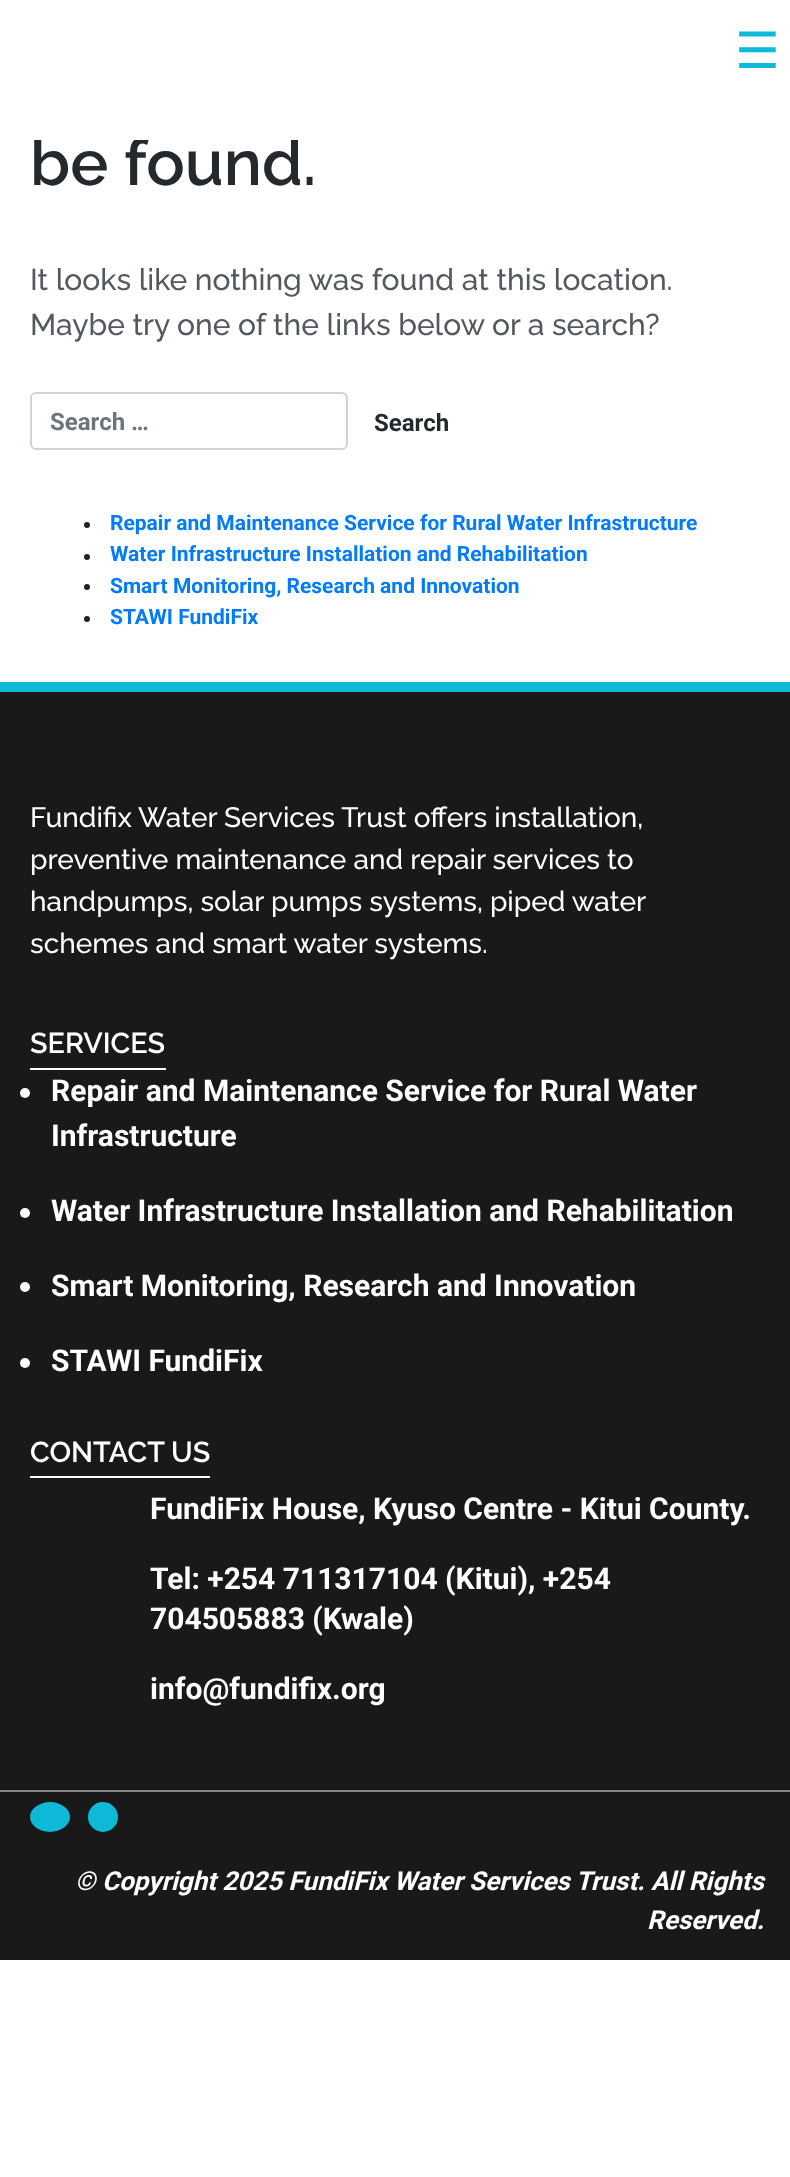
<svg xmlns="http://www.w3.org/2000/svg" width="790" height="2177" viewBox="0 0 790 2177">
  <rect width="100%" height="100%" fill="rgb(255,255,255)"/>
  <text x="30" y="185" font-family="Raleway" font-size="64" font-weight="600" fill="rgb(36,41,46)">be found.</text>
  <rect x="34" y="137" width="265" height="3" fill="rgb(255,255,255)"/>
  <text x="735" y="68" font-family="DejaVu Sans" font-size="50" fill="rgb(14,185,215)">☰</text>
  <g font-family="Raleway" font-size="30" font-weight="500" fill="rgb(84,89,95)">
    <text>
      <tspan x="30" y="290">It looks like nothing was found at this location.</tspan>
      <tspan x="30" y="335">Maybe try one of the links below or a search?</tspan>
    </text>
  </g>
  <rect x="31" y="393" width="316" height="56" rx="5" fill="none" stroke="rgb(206,212,218)" stroke-width="2"/>
  <text x="50" y="430" font-family="Roboto" font-size="24" font-weight="bold" fill="rgb(108,117,125)">Search …</text>
  <text x="374" y="431" font-family="Roboto" font-size="24" font-weight="bold" fill="rgb(36,41,46)">Search</text>
  <circle cx="87" cy="525" r="3" fill="rgb(33,37,41)"/>
  <text x="110" y="530" font-family="Roboto" font-size="21" font-weight="bold" fill="rgb(0,123,255)">Repair and Maintenance Service for Rural Water Infrastructure</text>
  <circle cx="87" cy="557" r="3" fill="rgb(33,37,41)"/>
  <text x="110" y="561" font-family="Roboto" font-size="21" font-weight="bold" fill="rgb(0,123,255)">Water Infrastructure Installation and Rehabilitation</text>
  <circle cx="87" cy="587" r="3" fill="rgb(33,37,41)"/>
  <text x="110" y="593" font-family="Roboto" font-size="21" font-weight="bold" fill="rgb(0,123,255)">Smart Monitoring, Research and Innovation</text>
  <circle cx="87" cy="619" r="3" fill="rgb(33,37,41)"/>
  <text x="110" y="624" font-family="Roboto" font-size="21" font-weight="bold" fill="rgb(0,123,255)">STAWI FundiFix</text>
  <rect x="0" y="692" width="790" height="1268" fill="rgb(25,25,25)"/>
  <rect x="0" y="682" width="790" height="10" fill="rgb(14,185,215)"/>
  <g font-family="Raleway" font-size="28" font-weight="500" fill="rgb(255,255,255)">
    <text>
      <tspan x="30" y="827">Fundifix Water Services Trust offers installation,</tspan>
      <tspan x="30" y="869">preventive maintenance and repair services to</tspan>
      <tspan x="30" y="911">handpumps, solar pumps systems, piped water</tspan>
      <tspan x="30" y="953">schemes and smart water systems.</tspan>
    </text>
  </g>
  <rect x="30" y="1068" width="136" height="2" fill="rgb(255,255,255)"/>
  <text x="30" y="1053" font-family="Raleway" font-size="28.75" font-weight="600" fill="rgb(255,255,255)">SERVICES</text>
  <circle cx="25" cy="1093" r="5" fill="rgb(255,255,255)"/>
  <g font-family="Roboto" font-size="30" font-weight="bold" fill="rgb(255,255,255)">
    <text>
      <tspan x="51" y="1101">Repair and Maintenance Service for Rural Water</tspan>
      <tspan x="51" y="1146">Infrastructure</tspan>
    </text>
  </g>
  <circle cx="25" cy="1213" r="5" fill="rgb(255,255,255)"/>
  <text x="51" y="1221" font-family="Roboto" font-size="30" font-weight="bold" fill="rgb(255,255,255)">Water Infrastructure Installation and Rehabilitation</text>
  <circle cx="25" cy="1287" r="5" fill="rgb(255,255,255)"/>
  <text x="51" y="1296" font-family="Roboto" font-size="30" font-weight="bold" fill="rgb(255,255,255)">Smart Monitoring, Research and Innovation</text>
  <circle cx="25" cy="1363" r="5" fill="rgb(255,255,255)"/>
  <text x="51" y="1371" font-family="Roboto" font-size="30" font-weight="bold" fill="rgb(255,255,255)">STAWI FundiFix</text>
  <rect x="30" y="1476" width="180" height="2" fill="rgb(255,255,255)"/>
  <text x="30" y="1462" font-family="Raleway" font-size="28.75" font-weight="600" fill="rgb(255,255,255)">CONTACT US</text>
  <g font-family="Roboto" font-size="30" font-weight="bold" fill="rgb(255,255,255)">
    <text x="150" y="1519">FundiFix House, Kyuso Centre - Kitui County.</text>
    <text>
      <tspan x="150" y="1589">Tel: +254 711317104 (Kitui), +254</tspan>
      <tspan x="150" y="1629">704505883 (Kwale)</tspan>
    </text>
    <text x="150" y="1699">info@fundifix.org</text>
  </g>
  <rect x="0" y="1790" width="790" height="2" fill="rgb(136,136,136)"/>
  <ellipse cx="50" cy="1817" rx="20" ry="15" fill="rgb(14,185,215)"/>
  <circle cx="103" cy="1817" r="15" fill="rgb(14,185,215)"/>
  <g font-family="Roboto" font-size="26" font-weight="bold" font-style="italic" fill="rgb(255,255,255)">
    <text x="75" y="1890">© Copyright 2025 FundiFix Water Services Trust. All Rights</text>
    <text x="647" y="1929">Reserved.</text>
  </g>
</svg>
